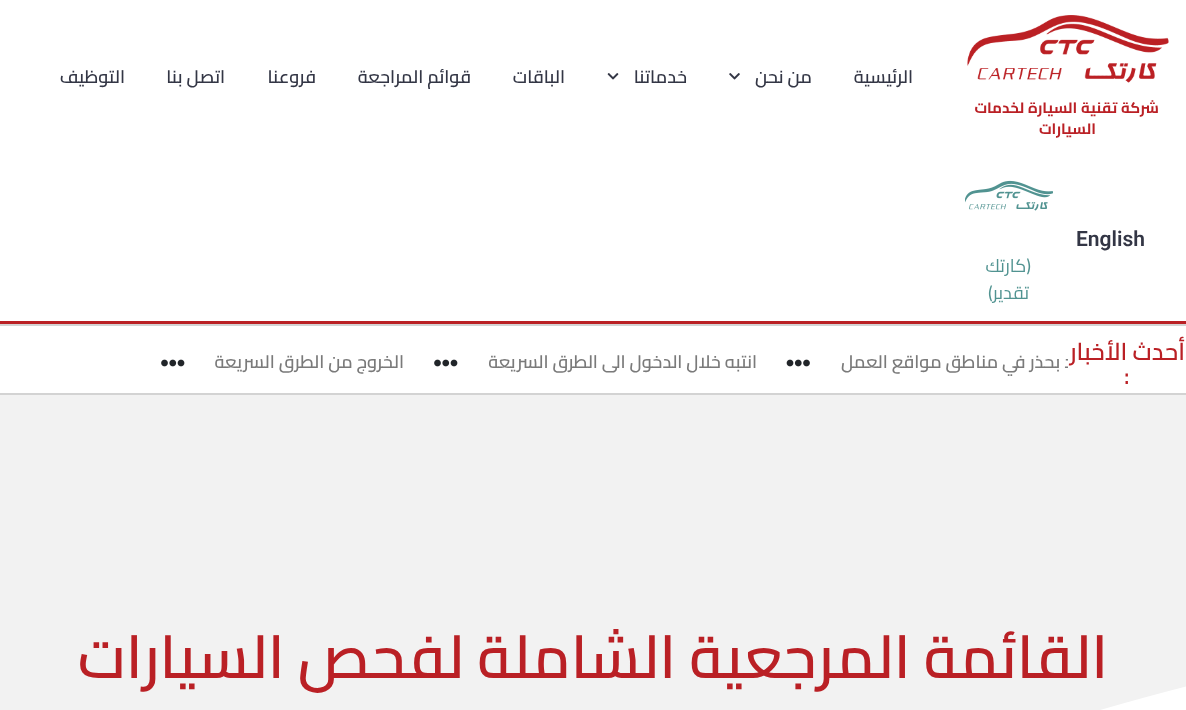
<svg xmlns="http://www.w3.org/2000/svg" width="1186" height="710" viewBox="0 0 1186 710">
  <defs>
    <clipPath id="clip1"><rect x="0" y="333" width="1068" height="60"/></clipPath>
  </defs>
  <rect width="100%" height="100%" fill="rgb(255,255,255)"/>
  <rect x="0" y="321" width="1186" height="3" fill="rgb(186,32,37)"/>
  <g font-family="Cairo" font-size="18" font-weight="600" direction="rtl" fill="rgb(51,54,69)">
    <text x="913" y="83">الرئيسية</text>
    <text x="812" y="83">من نحن</text>
  </g>
  <image x="729" y="73" width="11" height="7" href="pic1.png"/>
  <text x="687" y="83" font-family="Cairo" font-size="18" font-weight="600" direction="rtl" fill="rgb(51,54,69)">خدماتنا</text>
  <image x="607" y="73" width="12" height="7" href="pic2.png"/>
  <g font-family="Cairo" font-size="18" font-weight="600" direction="rtl" fill="rgb(51,54,69)">
    <text x="565" y="83">الباقات</text>
    <text x="471" y="83">قوائم المراجعة</text>
    <text x="316" y="83">فروعنا</text>
    <text x="225" y="83">اتصل بنا</text>
    <text x="125" y="83">التوظيف</text>
  </g>
  <image x="967" y="15" width="202" height="68" href="pic3.png"/>
  <g font-family="Cairo" font-size="15" font-weight="bold" direction="rtl" fill="rgb(186,32,37)">
    <text x="1159" y="113">شركة تقنية السيارة لخدمات</text>
    <text x="1096" y="134">السيارات</text>
  </g>
  <text x="1076" y="246" font-family="Roboto" font-size="21" font-weight="600" fill="rgb(51,54,69)">English</text>
  <image x="965" y="180" width="88" height="31" href="pic4.png"/>
  <g font-family="Cairo" font-size="18" direction="rtl" fill="rgb(81,147,145)">
    <text x="1031" y="272">(كارتك</text>
    <text x="1029" y="299">تقدير)</text>
  </g>
  <rect x="0" y="324" width="1186" height="2" fill="rgb(211,211,211)"/>
  <rect x="0" y="393" width="1186" height="2" fill="rgb(211,211,211)"/>
  <text x="1185" y="360" font-family="Cairo" font-size="24" font-weight="600" direction="rtl" fill="rgb(186,32,37)">أحدث الأخبار</text>
  <text x="1124" y="384" font-family="Cairo" font-size="24" font-weight="600" fill="rgb(186,32,37)">:</text>
  <g clip-path="url(#clip1)">
    <text x="1085" y="368" font-family="Cairo" font-size="18" font-weight="600" direction="rtl" fill="rgb(122,122,122)">قد بحذر في مناطق مواقع العمل</text>
  </g>
  <image x="786" y="359" width="24" height="8" href="pic5.png"/>
  <text x="757" y="368" font-family="Cairo" font-size="18" font-weight="600" direction="rtl" fill="rgb(122,122,122)">انتبه خلال الدخول الى الطرق السريعة</text>
  <image x="434" y="359" width="24" height="8" href="pic6.png"/>
  <text x="404" y="368" font-family="Cairo" font-size="18" font-weight="600" direction="rtl" fill="rgb(122,122,122)">الخروج من الطرق السريعة</text>
  <image x="161" y="359" width="24" height="8" href="pic6.png"/>
  <rect x="0" y="395" width="1186" height="315" fill="rgb(242,242,242)"/>
  <path d="M353 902C423 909 512 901 586 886C659 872 805 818 896 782C1130 688 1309 652 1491 637C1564 631 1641 626 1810 644C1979 662 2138 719 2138 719V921H-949V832C-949 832-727 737-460 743C-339 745-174 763-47 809C19 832 114 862 199 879C283 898 321 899 353 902Z" fill="rgb(255,255,255)"/>
  <text x="1108" y="678" font-family="Cairo" font-size="60" font-weight="600" direction="rtl" fill="rgb(186,32,37)">القائمة المرجعية الشاملة لفحص السيارات</text>
</svg>
